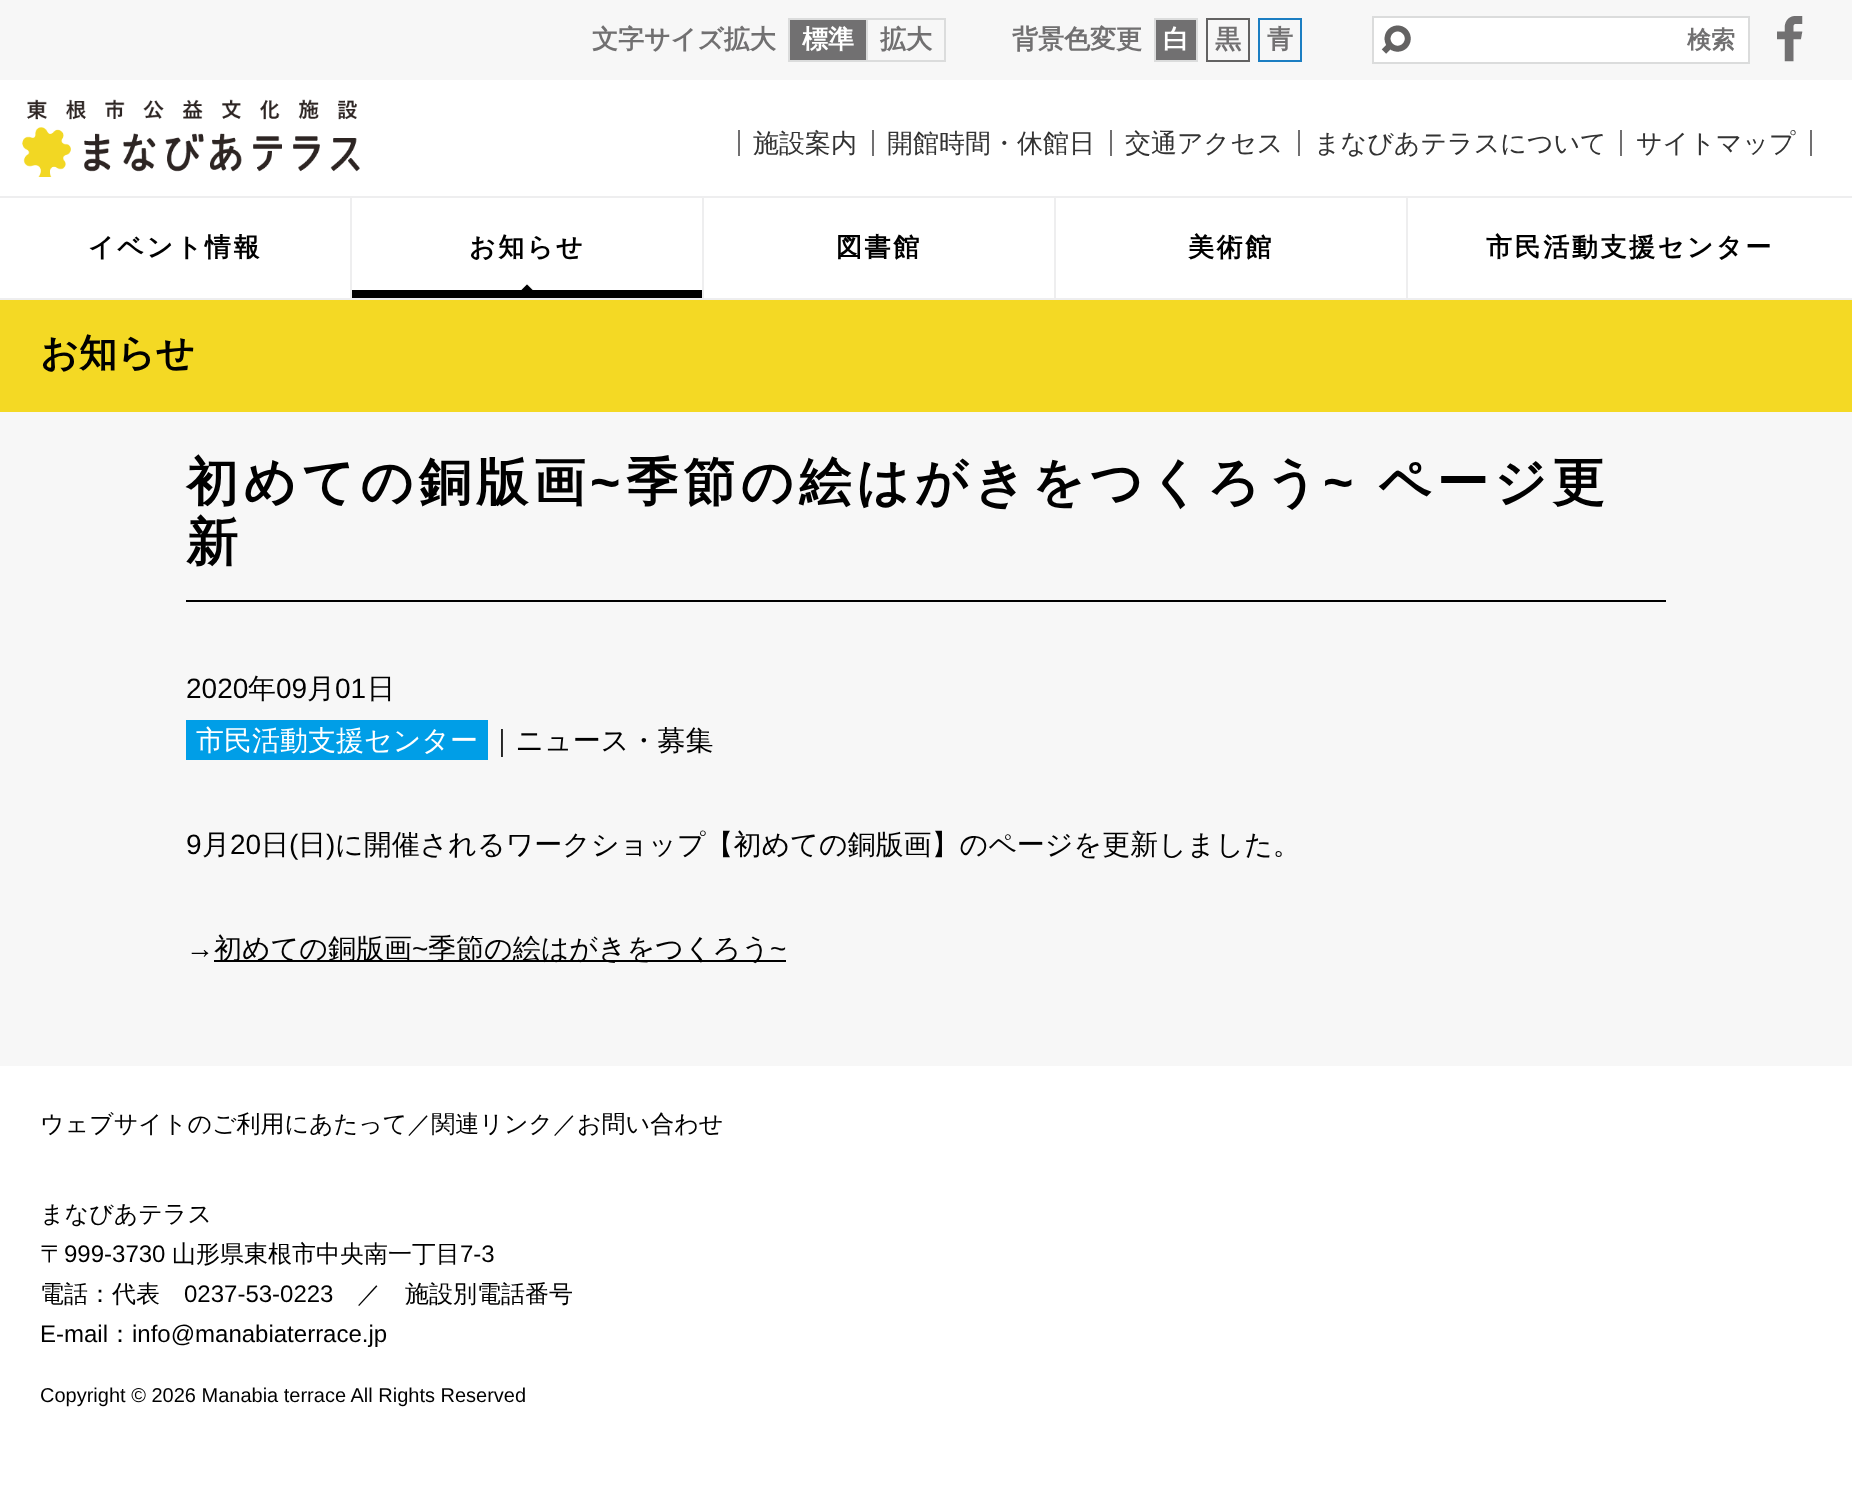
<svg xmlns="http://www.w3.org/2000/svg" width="1852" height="1500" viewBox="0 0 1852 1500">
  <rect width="100%" height="100%" fill="rgb(255,255,255)"/>
  <rect x="0" y="0" width="1852" height="80" fill="rgb(247,247,247)"/>
  <text x="592" y="48" font-family="WenQuanYi Zen Hei" font-size="26" font-weight="bold" fill="rgb(113,112,113)">文字サイズ拡大</text>
  <rect x="788" y="18" width="158" height="2" fill="rgb(219,220,220)"/>
  <rect x="788" y="60" width="158" height="2" fill="rgb(219,220,220)"/>
  <rect x="788" y="18" width="2" height="44" fill="rgb(219,220,220)"/>
  <rect x="790" y="20" width="76" height="40" fill="rgb(113,112,113)"/>
  <rect x="866" y="20" width="2" height="40" fill="rgb(219,220,220)"/>
  <text x="802" y="48" font-family="WenQuanYi Zen Hei" font-size="26" font-weight="bold" fill="rgb(255,255,255)">標準</text>
  <rect x="944" y="20" width="2" height="40" fill="rgb(219,220,220)"/>
  <g font-family="WenQuanYi Zen Hei" font-size="26" font-weight="bold" fill="rgb(113,112,113)">
    <text x="880" y="48">拡大</text>
    <text x="1012" y="48">背景色変更</text>
  </g>
  <rect x="1155" y="19" width="42" height="42" fill="rgb(113,112,113)" stroke="rgb(219,220,220)" stroke-width="2"/>
  <text x="1163" y="48" font-family="WenQuanYi Zen Hei" font-size="26" font-weight="bold" fill="rgb(255,255,255)">白</text>
  <rect x="1207" y="19" width="42" height="42" fill="none" stroke="rgb(99,98,98)" stroke-width="2"/>
  <text x="1215" y="48" font-family="WenQuanYi Zen Hei" font-size="26" font-weight="bold" fill="rgb(113,112,113)">黒</text>
  <rect x="1259" y="19" width="42" height="42" fill="none" stroke="rgb(27,126,194)" stroke-width="2"/>
  <text x="1267" y="48" font-family="WenQuanYi Zen Hei" font-size="26" font-weight="bold" fill="rgb(113,112,113)">青</text>
  <rect x="1374" y="18" width="374" height="44" fill="rgb(255,255,255)"/>
  <image x="1381" y="25" width="30" height="29" href="pic1.png"/>
  <rect x="1372" y="16" width="378" height="2" fill="rgb(219,220,220)"/>
  <rect x="1372" y="62" width="302" height="2" fill="rgb(219,220,220)"/>
  <rect x="1372" y="16" width="2" height="48" fill="rgb(219,220,220)"/>
  <rect x="1748" y="16" width="2" height="48" fill="rgb(219,220,220)"/>
  <rect x="1674" y="62" width="76" height="2" fill="rgb(219,220,220)"/>
  <text x="1687" y="48" font-family="WenQuanYi Zen Hei" font-size="24" font-weight="bold" fill="rgb(113,112,113)">検索</text>
  <image x="1777" y="16" width="26" height="46" href="pic2.png"/>
  <image x="22" y="99" width="338" height="78" href="pic3.png"/>
  <rect x="0" y="196" width="1852" height="2" fill="rgb(238,238,239)"/>
  <rect x="0" y="298" width="1852" height="2" fill="rgb(238,238,239)"/>
  <rect x="738" y="130" width="2" height="26" fill="rgb(113,112,113)"/>
  <text x="753" y="152" font-family="WenQuanYi Zen Hei" font-size="26" font-weight="500" fill="rgb(51,51,51)">施設案内</text>
  <rect x="872" y="130" width="2" height="26" fill="rgb(113,112,113)"/>
  <text x="887" y="152" font-family="WenQuanYi Zen Hei" font-size="26" font-weight="500" fill="rgb(51,51,51)">開館時間・休館日</text>
  <rect x="1110" y="130" width="2" height="26" fill="rgb(113,112,113)"/>
  <text x="1125" y="152" font-family="WenQuanYi Zen Hei" font-size="26" font-weight="500" fill="rgb(51,51,51)">交通アクセス</text>
  <rect x="1298" y="130" width="2" height="26" fill="rgb(113,112,113)"/>
  <text x="1314" y="152" font-family="WenQuanYi Zen Hei" font-size="26" font-weight="500" fill="rgb(51,51,51)">まなびあテラスについて</text>
  <rect x="1810" y="130" width="2" height="26" fill="rgb(113,112,113)"/>
  <rect x="1620" y="130" width="2" height="26" fill="rgb(113,112,113)"/>
  <text x="1636" y="152" font-family="WenQuanYi Zen Hei" font-size="26" font-weight="500" fill="rgb(51,51,51)">サイトマップ</text>
  <rect x="350" y="198" width="2" height="100" fill="rgb(238,238,239)"/>
  <text x="88" y="256" font-family="WenQuanYi Zen Hei" font-size="26" font-weight="bold" letter-spacing="2.6" fill="rgb(0,0,0)">イベント情報</text>
  <image x="352" y="284" width="350" height="14" href="pic4.png"/>
  <rect x="702" y="198" width="2" height="100" fill="rgb(238,238,239)"/>
  <text x="469" y="256" font-family="WenQuanYi Zen Hei" font-size="26" font-weight="bold" letter-spacing="2.6" fill="rgb(0,0,0)">お知らせ</text>
  <rect x="1054" y="198" width="2" height="100" fill="rgb(238,238,239)"/>
  <text x="836" y="256" font-family="WenQuanYi Zen Hei" font-size="26" font-weight="bold" letter-spacing="2.6" fill="rgb(0,0,0)">図書館</text>
  <rect x="1406" y="198" width="2" height="100" fill="rgb(238,238,239)"/>
  <g font-family="WenQuanYi Zen Hei" font-size="26" font-weight="bold" letter-spacing="2.6" fill="rgb(0,0,0)">
    <text x="1188" y="256">美術館</text>
    <text x="1486" y="256">市民活動支援センター</text>
  </g>
  <rect x="0" y="412" width="1852" height="654" fill="rgb(247,247,247)"/>
  <rect x="0" y="300" width="1852" height="112" fill="rgb(244,217,36)"/>
  <text x="40" y="366" font-family="WenQuanYi Zen Hei" font-size="38" font-weight="bold" fill="rgb(0,0,0)">お知らせ</text>
  <rect x="186" y="600" width="1480" height="2" fill="rgb(0,0,0)"/>
  <text x="186" y="500" font-family="WenQuanYi Zen Hei" font-size="52" font-weight="bold" letter-spacing="5.25" fill="rgb(0,0,0)">初めての銅版画</text>
  <text x="590" y="500" font-family="Liberation Sans" font-size="52" font-weight="bold" letter-spacing="5.25" fill="rgb(0,0,0)">~</text>
  <text x="626" y="500" font-family="WenQuanYi Zen Hei" font-size="52" font-weight="bold" letter-spacing="5.25" fill="rgb(0,0,0)">季節の絵はがきをつくろう</text>
  <text x="1323" y="500" font-family="Liberation Sans" font-size="52" font-weight="bold" letter-spacing="5.25" fill="rgb(0,0,0)">~</text>
  <g font-family="WenQuanYi Zen Hei" font-size="52" font-weight="bold" letter-spacing="5.25" fill="rgb(0,0,0)">
    <text x="1378" y="500">ページ更</text>
    <text x="186" y="560">新</text>
  </g>
  <text x="186" y="698" font-family="Liberation Sans" font-size="28" fill="rgb(0,0,0)">2020</text>
  <text x="248" y="698" font-family="WenQuanYi Zen Hei" font-size="28" font-weight="500" fill="rgb(0,0,0)">年</text>
  <text x="276" y="698" font-family="Liberation Sans" font-size="28" fill="rgb(0,0,0)">09</text>
  <text x="307" y="698" font-family="WenQuanYi Zen Hei" font-size="28" font-weight="500" fill="rgb(0,0,0)">月</text>
  <text x="335" y="698" font-family="Liberation Sans" font-size="28" fill="rgb(0,0,0)">01</text>
  <text x="367" y="698" font-family="WenQuanYi Zen Hei" font-size="28" font-weight="500" fill="rgb(0,0,0)">日</text>
  <rect x="186" y="720" width="302" height="40" fill="rgb(0,158,231)"/>
  <text x="196" y="750" font-family="WenQuanYi Zen Hei" font-size="28" font-weight="500" fill="rgb(255,255,255)">市民活動支援センター</text>
  <text x="488" y="750" font-family="WenQuanYi Zen Hei" font-size="28" font-weight="500" fill="rgb(0,0,0)">｜ニュース・募集</text>
  <text x="186" y="854" font-family="Liberation Sans" font-size="28" fill="rgb(0,0,0)">9</text>
  <text x="202" y="854" font-family="WenQuanYi Zen Hei" font-size="28" font-weight="500" fill="rgb(0,0,0)">月</text>
  <text x="230" y="854" font-family="Liberation Sans" font-size="28" fill="rgb(0,0,0)">20</text>
  <text x="261" y="854" font-family="WenQuanYi Zen Hei" font-size="28" font-weight="500" fill="rgb(0,0,0)">日</text>
  <text x="289" y="854" font-family="Liberation Sans" font-size="28" fill="rgb(0,0,0)">(</text>
  <text x="298" y="854" font-family="WenQuanYi Zen Hei" font-size="28" font-weight="500" fill="rgb(0,0,0)">日</text>
  <text x="326" y="854" font-family="Liberation Sans" font-size="28" fill="rgb(0,0,0)">)</text>
  <text x="335" y="854" font-family="WenQuanYi Zen Hei" font-size="28" font-weight="500" fill="rgb(0,0,0)">に開催されるワークショップ【初めての銅版画】のページを更新しました。</text>
  <rect x="214" y="960" width="572" height="2" fill="rgb(0,0,0)"/>
  <text x="214" y="958" font-family="WenQuanYi Zen Hei" font-size="28" font-weight="500" fill="rgb(0,0,0)">初めての銅版画</text>
  <text x="412" y="958" font-family="Liberation Sans" font-size="28" fill="rgb(0,0,0)">~</text>
  <text x="428" y="958" font-family="WenQuanYi Zen Hei" font-size="28" font-weight="500" fill="rgb(0,0,0)">季節の絵はがきをつくろう</text>
  <g font-family="Liberation Sans" font-size="28" fill="rgb(0,0,0)">
    <text x="770" y="958">~</text>
    <text x="186" y="958">→</text>
  </g>
  <g font-family="WenQuanYi Zen Hei" font-size="24" font-weight="500" fill="rgb(0,0,0)">
    <text x="40" y="1132">ウェブサイトのご利用にあたって／関連リンク／お問い合わせ</text>
    <text>
      <tspan x="40" y="1222">まなびあテラス</tspan>
      <tspan x="40" y="1262">〒</tspan>
    </text>
  </g>
  <text x="64" y="1262" font-family="Liberation Sans" font-size="24" fill="rgb(0,0,0)">999-3730</text>
  <text x="172" y="1262" font-family="WenQuanYi Zen Hei" font-size="24" font-weight="500" fill="rgb(0,0,0)">山形県東根市中央南一丁目</text>
  <text x="460" y="1262" font-family="Liberation Sans" font-size="24" fill="rgb(0,0,0)">7-3</text>
  <text x="40" y="1302" font-family="WenQuanYi Zen Hei" font-size="24" font-weight="500" fill="rgb(0,0,0)">電話：代表</text>
  <text x="184" y="1302" font-family="Liberation Sans" font-size="24" fill="rgb(0,0,0)">0237-53-0223</text>
  <g font-family="WenQuanYi Zen Hei" font-size="24" font-weight="500" fill="rgb(0,0,0)">
    <text x="357" y="1302">／</text>
    <text x="405" y="1302">施設別電話番号</text>
  </g>
  <text x="40" y="1342" font-family="Liberation Sans" font-size="24" fill="rgb(0,0,0)">E-mail</text>
  <text x="108" y="1342" font-family="WenQuanYi Zen Hei" font-size="24" font-weight="500" fill="rgb(0,0,0)">：</text>
  <text x="132" y="1342" font-family="Liberation Sans" font-size="24" fill="rgb(0,0,0)">info@manabiaterrace.jp</text>
  <text x="40" y="1402" font-family="Liberation Sans" font-size="20" fill="rgb(0,0,0)">Copyright © 2026 Manabia terrace All Rights Reserved</text>
</svg>
